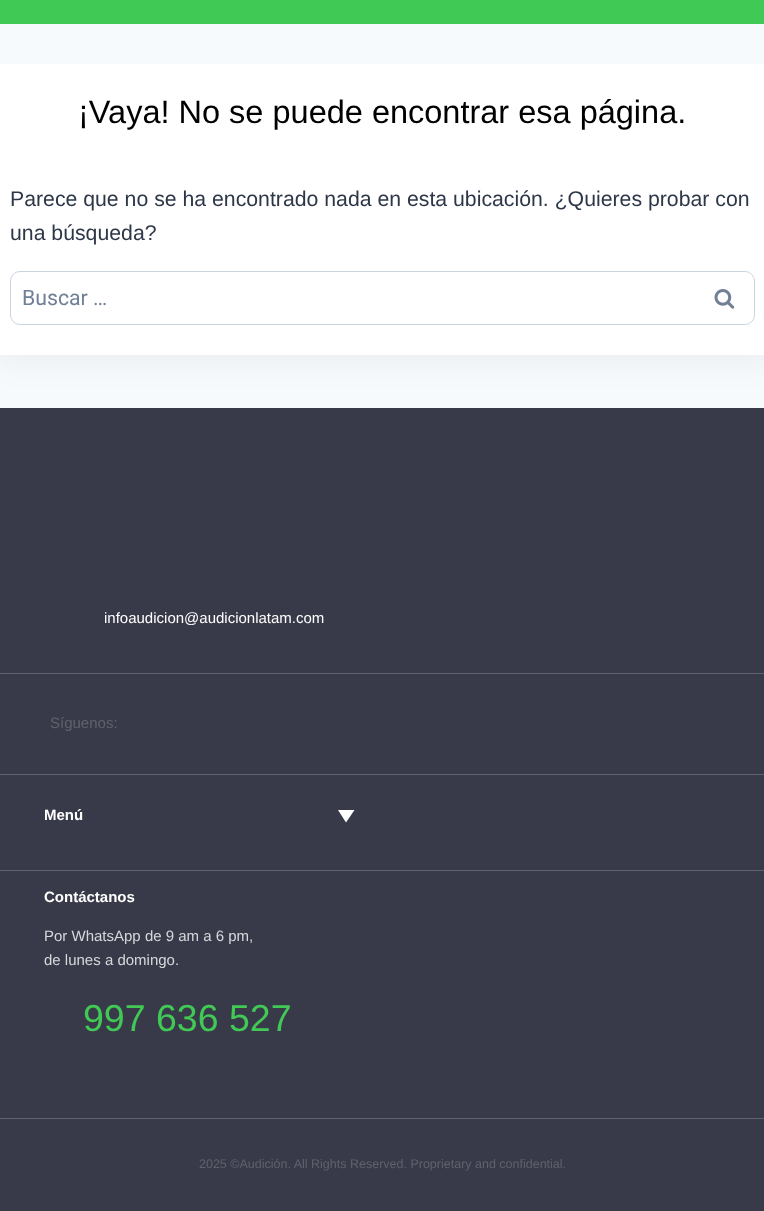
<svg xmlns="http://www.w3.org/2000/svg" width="764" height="1211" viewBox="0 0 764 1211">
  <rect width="100%" height="100%" fill="rgb(247,250,252)"/>
  <rect x="0" y="0" width="764" height="24" fill="rgb(65,201,85)"/>
  <rect x="0" y="408" width="764" height="803" fill="rgb(57,58,73)"/>
  <rect x="-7" y="95" width="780" height="266" fill="rgba(0,0,0,0.05)" filter="blur(15.5px)"/>
  <rect x="0" y="64" width="764" height="291" fill="rgb(255,255,255)"/>
  <text x="78" y="123" font-family="Liberation Sans" font-size="32.5" fill="rgb(0,0,0)">¡Vaya! No se puede encontrar esa página.</text>
  <g font-family="Liberation Sans" font-size="21.25" fill="rgb(45,55,72)">
    <text>
      <tspan x="10" y="206">Parece que no se ha encontrado nada en esta ubicación. ¿Quieres probar con</tspan>
      <tspan x="10" y="240">una búsqueda?</tspan>
    </text>
  </g>
  <rect x="10.5" y="271.5" width="744" height="53" rx="9.5" fill="none" stroke="rgb(203,213,224)"/>
  <text x="22" y="305" font-family="Roboto" font-size="21.25" fill="rgb(113,128,150)">Buscar …</text>
  <image x="714" y="289" width="21" height="20" href="pic1.png"/>
  <text x="104" y="623" font-family="Liberation Sans" font-size="15" fill="rgb(255,255,255)">infoaudicion@audicionlatam.com</text>
  <rect x="0" y="673" width="764" height="1" fill="rgb(97,97,109)"/>
  <text x="50" y="728" font-family="Liberation Sans" font-size="15" fill="rgb(97,97,109)">Síguenos:</text>
  <rect x="0" y="774" width="764" height="1" fill="rgb(97,97,109)"/>
  <rect x="0" y="870" width="764" height="1" fill="rgb(97,97,109)"/>
  <text x="44" y="820" font-family="Liberation Sans" font-size="15" font-weight="bold" fill="rgb(255,255,255)">Menú</text>
  <path d="M338 810L346 822.5L354.5 810Z" fill="rgb(255,255,255)"/>
  <text x="44" y="902" font-family="Liberation Sans" font-size="15" font-weight="bold" fill="rgb(255,255,255)">Contáctanos</text>
  <g font-family="Liberation Sans" font-size="15" fill="rgb(215,216,219)">
    <text>
      <tspan x="44" y="941">Por WhatsApp de 9 am a 6 pm,</tspan>
      <tspan x="44" y="965">de lunes a domingo.</tspan>
    </text>
  </g>
  <text x="83" y="1031" font-family="Liberation Sans" font-size="37.5" fill="rgb(65,201,85)">997 636 527</text>
  <rect x="0" y="1118" width="764" height="1" fill="rgb(97,97,109)"/>
  <text x="199" y="1168" font-family="Liberation Sans" font-size="12.5" fill="rgb(97,97,109)">2025 ©Audición. All Rights Reserved. Proprietary and confidential.</text>
</svg>
